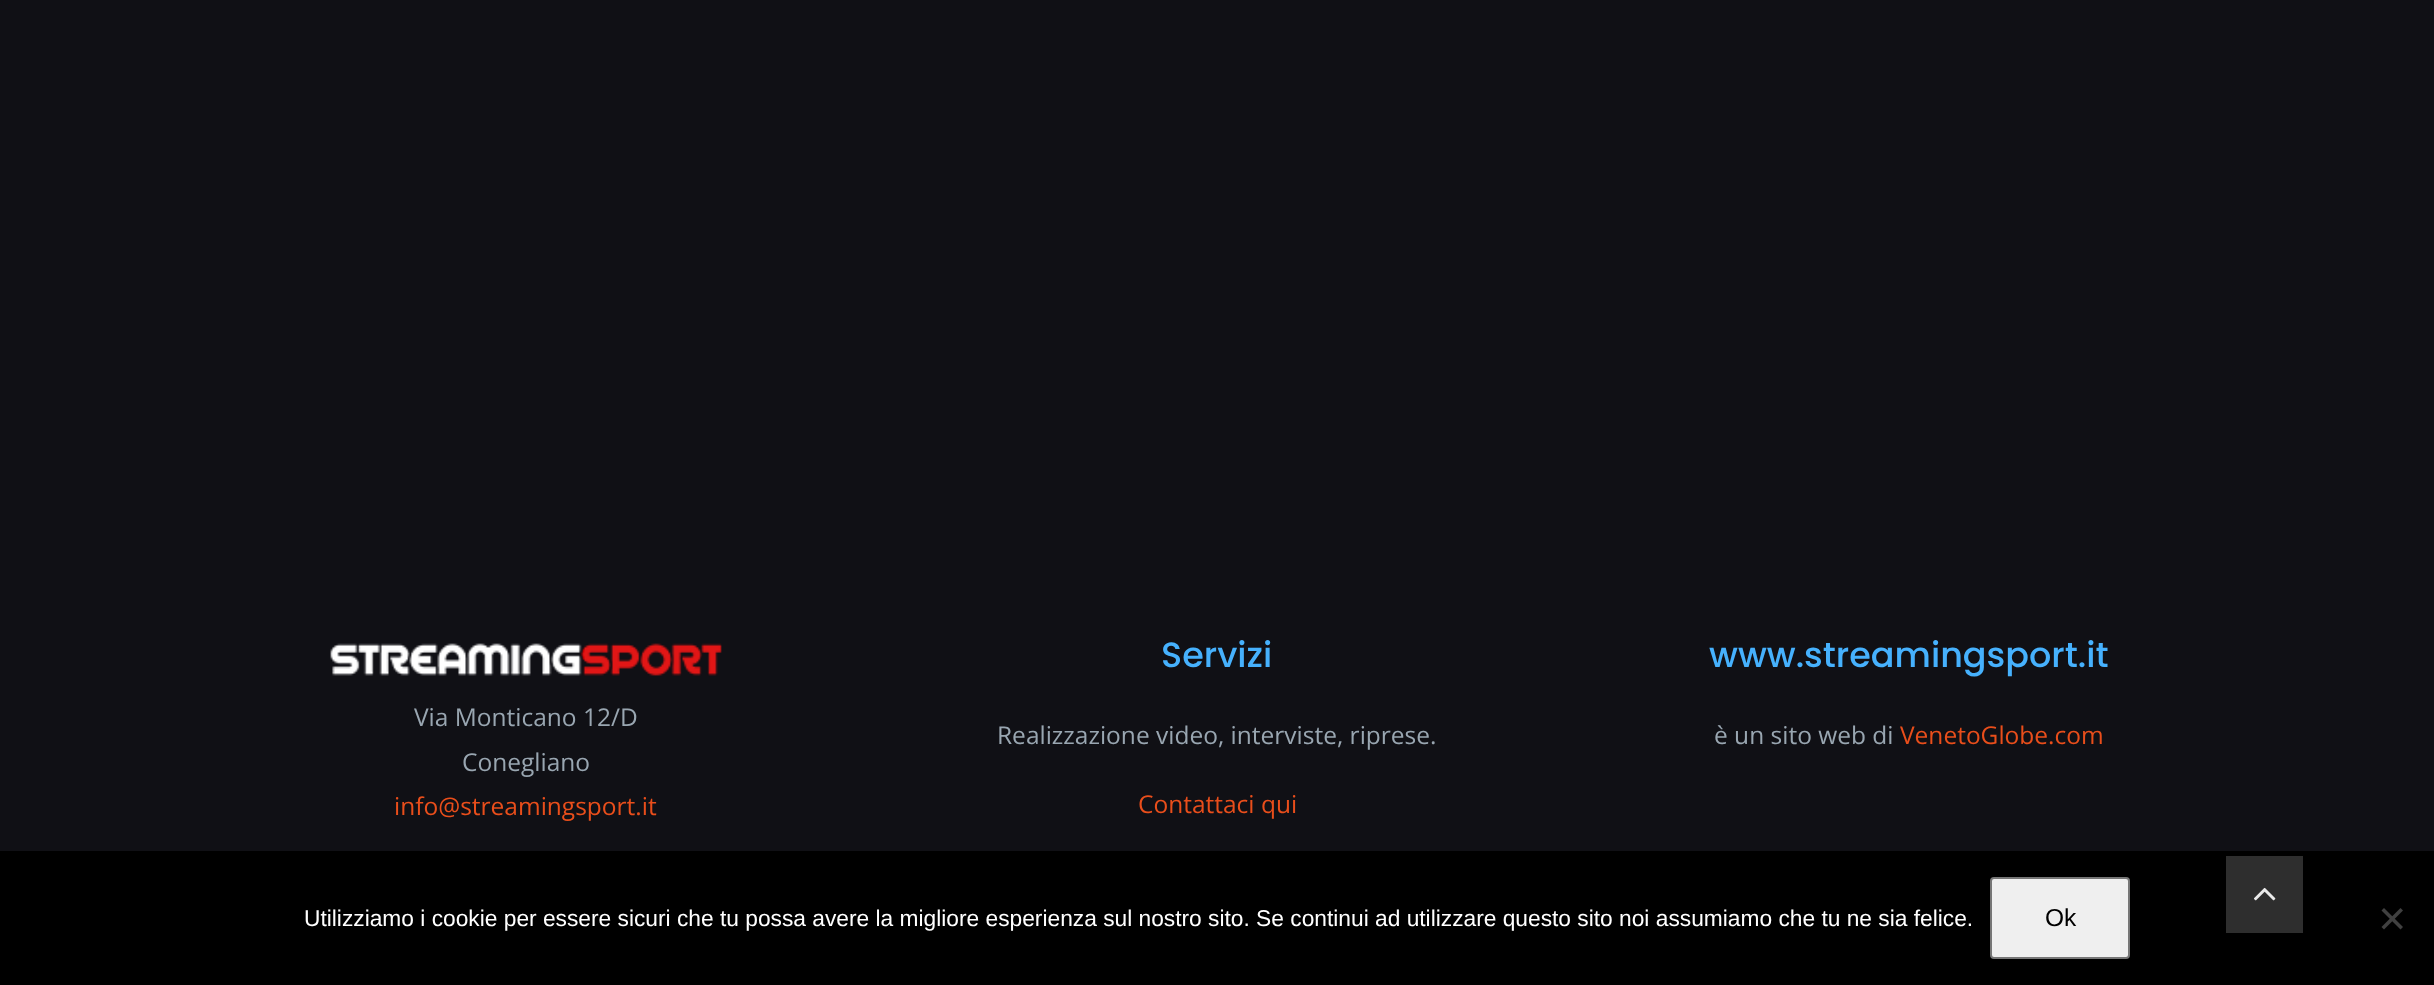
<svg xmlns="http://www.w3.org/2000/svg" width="2434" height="985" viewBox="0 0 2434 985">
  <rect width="100%" height="100%" fill="rgb(16,16,21)"/>
  <text x="1161" y="667" font-family="Poppins" font-size="35" font-weight="500" fill="rgb(70,177,253)">Servizi</text>
  <text x="997" y="744" font-family="Open Sans" font-size="24.5" fill="rgb(153,166,177)">Realizzazione video, interviste, riprese.</text>
  <text x="1138" y="813" font-family="Open Sans" font-size="24.5" fill="rgb(233,78,27)">Contattaci qui</text>
  <text x="1709" y="667" font-family="Poppins" font-size="35" font-weight="500" fill="rgb(70,177,253)">www.streamingsport.it</text>
  <text x="1714" y="744" font-family="Open Sans" font-size="24.5" fill="rgb(153,166,177)">è un sito web di</text>
  <text x="1900" y="744" font-family="Open Sans" font-size="24.5" fill="rgb(233,78,27)">VenetoGlobe.com</text>
  <image x="330" y="643" width="392" height="33" href="pic1.png"/>
  <g font-family="Open Sans" font-size="24.5" fill="rgb(153,166,177)">
    <text x="414" y="726">Via Monticano 12/D</text>
    <text x="462" y="771">Conegliano</text>
  </g>
  <text x="394" y="815" font-family="Open Sans" font-size="24.5" fill="rgb(233,78,27)">info@streamingsport.it</text>
  <rect x="0" y="851" width="2434" height="134" fill="rgb(0,0,0)"/>
  <text x="304" y="926" font-family="Liberation Sans" font-size="22.75" fill="rgb(255,255,255)">Utilizziamo i cookie per essere sicuri che tu possa avere la migliore esperienza sul nostro sito. Se continui ad utilizzare questo sito noi assumiamo che tu ne sia felice.</text>
  <rect x="1991" y="878" width="138" height="80" rx="3" fill="rgb(239,239,239)" stroke="rgb(118,118,118)" stroke-width="2"/>
  <text x="2045" y="926" font-family="Liberation Sans" font-size="24.5" fill="rgb(0,0,0)">Ok</text>
  <path d="M2400.5 908L2403 910.5L2384 929.5L2381.5 927Z" fill="rgb(64,64,64)"/>
  <path d="M2381.5 910.5L2384 908L2403 927L2400.5 929.5Z" fill="rgb(64,64,64)"/>
  <rect x="2226" y="856" width="77" height="77" fill="rgb(46,46,46)"/>
  <image x="2254" y="887" width="22" height="14" href="pic2.png"/>
</svg>
